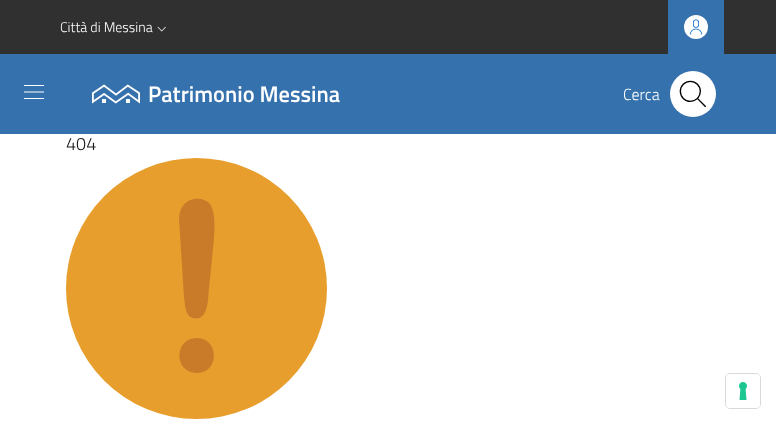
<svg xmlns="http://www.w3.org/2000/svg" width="776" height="424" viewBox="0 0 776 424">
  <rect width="100%" height="100%" fill="rgb(255,255,255)"/>
  <rect x="0" y="0" width="776" height="54" fill="rgb(48,48,48)"/>
  <text x="60" y="32" font-family="Titillium Web" font-size="14" font-weight="300" fill="rgb(255,255,255)">Città di Messina</text>
  <image x="157" y="26" width="9" height="6" href="pic1.png"/>
  <rect x="668" y="0" width="56" height="54" fill="rgb(53,113,173)"/>
  <circle cx="696" cy="27" r="12" fill="rgb(255,255,255)"/>
  <image x="690" y="19" width="12" height="16" href="pic2.png"/>
  <rect x="0" y="54" width="776" height="80" fill="rgb(53,113,173)"/>
  <image x="24" y="85" width="20" height="14" href="pic3.png"/>
  <image x="92" y="84" width="48" height="20" href="pic4.png"/>
  <text x="148" y="102" font-family="Titillium Web" font-size="22.5" font-weight="600" fill="rgb(255,255,255)">Patrimonio Messina</text>
  <text x="623" y="100" font-family="Titillium Web" font-size="16" font-weight="300" fill="rgb(255,255,255)">Cerca</text>
  <circle cx="693" cy="94" r="23" fill="rgb(255,255,255)"/>
  <image x="679" y="80" width="28" height="28" href="pic5.png"/>
  <text x="66" y="150" font-family="Titillium Web" font-size="18" font-weight="300" fill="rgb(25,25,26)">404</text>
  <circle cx="196.5" cy="288.5" r="130.5" fill="rgb(231,158,45)"/>
  <path d="M184 297L179 219C179 209 184 201 194 199C199 198 206 199 210 204C218 215 213 247 212 259L209 288C208 297 209 322 193 318C185 316 185 304 184 297ZM197 373C173 373 174 338 197 338C219 338 220 373 197 373Z" fill="rgb(202,123,41)"/>
  <rect x="725.5" y="373.5" width="35" height="35" rx="4.5" fill="none" stroke="rgb(217,217,217)"/>
  <rect x="726" y="374" width="34" height="34" rx="4" fill="rgb(255,255,255)"/>
  <image x="739" y="382" width="8" height="18" href="pic6.png"/>
</svg>
